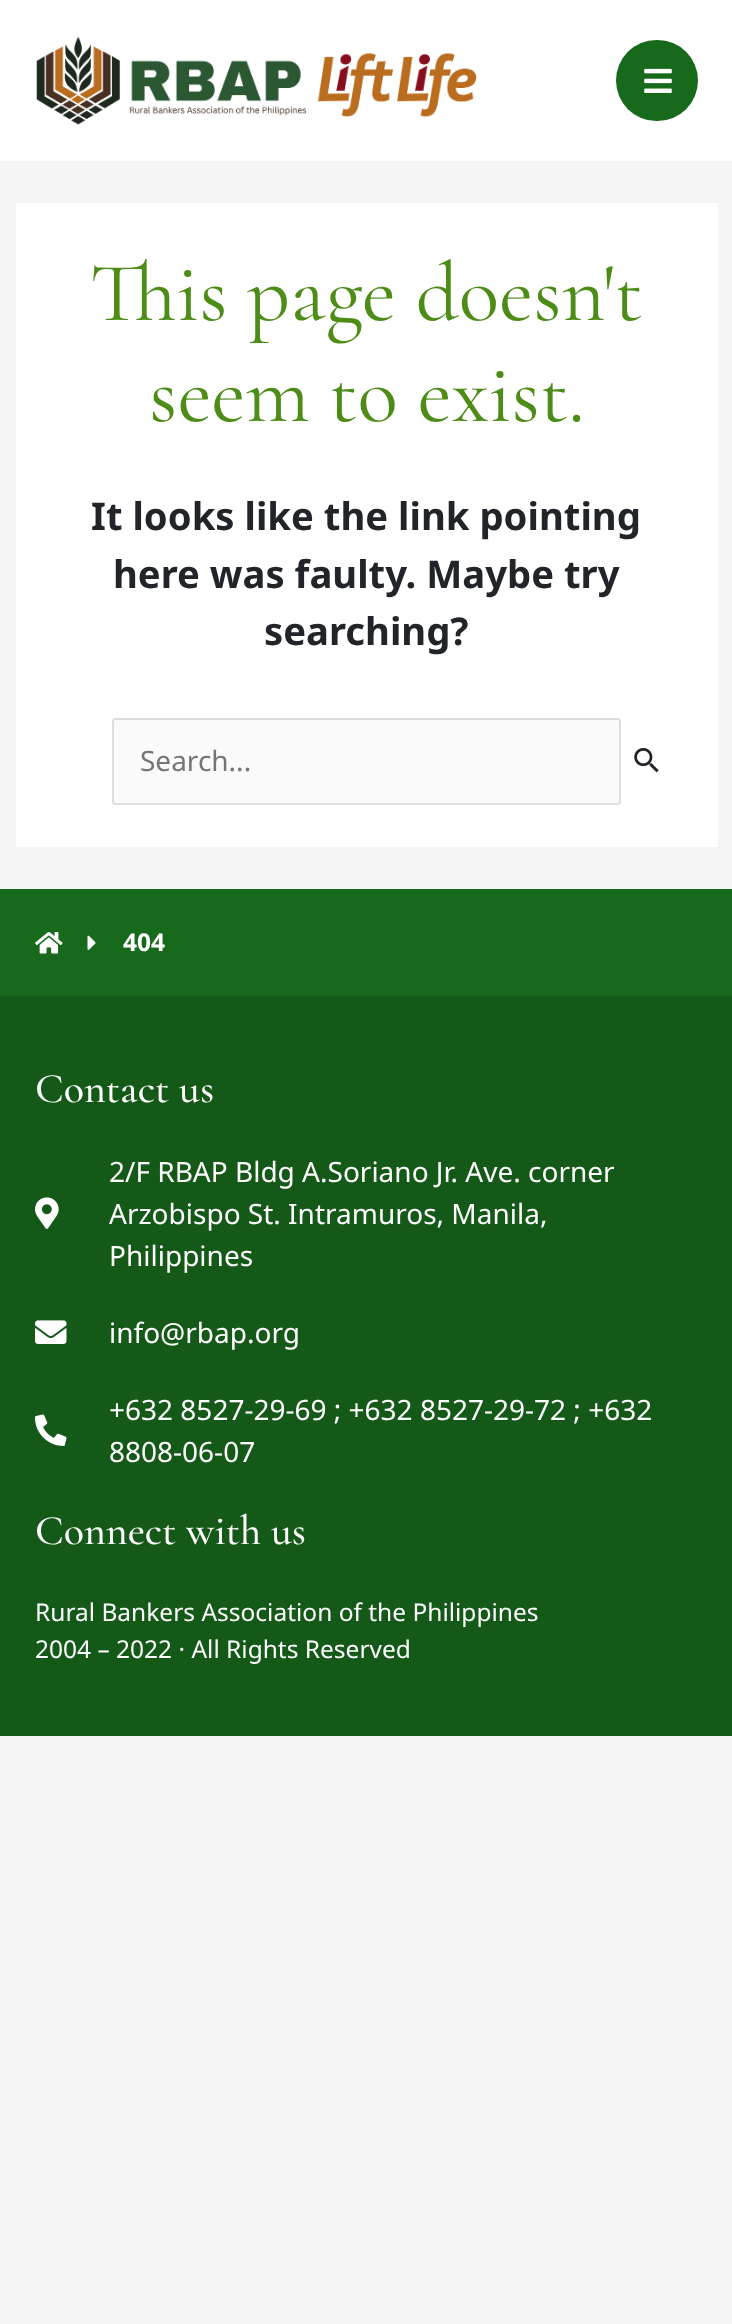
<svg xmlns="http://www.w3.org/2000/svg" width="732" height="2324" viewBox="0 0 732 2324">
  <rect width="100%" height="100%" fill="rgb(245,245,245)"/>
  <rect x="0" y="0" width="732" height="161" fill="rgb(255,255,255)"/>
  <image x="36" y="36" width="441" height="89" href="pic1.png"/>
  <rect x="616" y="40" width="82" height="81" rx="40.5" fill="rgb(23,105,28)"/>
  <image x="644" y="68" width="28" height="25" href="pic2.png"/>
  <rect x="16" y="203" width="702" height="644" fill="rgb(255,255,255)"/>
  <g font-family="Cormorant Garamond" font-size="84" fill="rgb(77,140,23)">
    <text x="90" y="320">This page doesn't</text>
    <text x="149" y="421">seem to exist.</text>
  </g>
  <g font-family="Noto Sans" font-size="38.25" font-weight="bold" fill="rgb(33,37,41)">
    <text x="91" y="530">It looks like the link pointing</text>
    <text x="113" y="588">here was faulty. Maybe try</text>
    <text x="264" y="645">searching?</text>
  </g>
  <rect x="113" y="719" width="507" height="85" rx="3" fill="rgb(250,250,250)" stroke="rgb(221,221,221)" stroke-width="2"/>
  <text x="140" y="771" font-family="Noto Sans" font-size="28" fill="rgb(117,117,117)">Search...</text>
  <image x="634" y="747" width="25" height="26" href="pic3.png"/>
  <rect x="0" y="889" width="732" height="107" fill="rgb(23,105,28)"/>
  <image x="35" y="932" width="28" height="22" href="pic4.png"/>
  <image x="87" y="935" width="9" height="15" href="pic5.png"/>
  <text x="123" y="951" font-family="Noto Sans" font-size="24.5" font-weight="bold" fill="rgb(255,255,255)">404</text>
  <rect x="0" y="996" width="732" height="740" fill="rgb(21,89,25)"/>
  <text x="35" y="1102" font-family="Cormorant Garamond" font-size="42" font-weight="500" fill="rgb(255,255,255)">Contact us</text>
  <image x="35" y="1197" width="24" height="32" href="pic6.png"/>
  <g font-family="Noto Sans" font-size="28" fill="rgb(255,255,255)">
    <text>
      <tspan x="109" y="1182">2/F RBAP Bldg A.Soriano Jr. Ave. corner</tspan>
      <tspan x="109" y="1224">Arzobispo St. Intramuros, Manila,</tspan>
      <tspan x="109" y="1266">Philippines</tspan>
    </text>
  </g>
  <image x="35" y="1320" width="32" height="24" href="pic7.png"/>
  <text x="109" y="1343" font-family="Noto Sans" font-size="28" fill="rgb(255,255,255)">info@rbap.org</text>
  <image x="35" y="1414" width="32" height="32" href="pic8.png"/>
  <g font-family="Noto Sans" font-size="28" fill="rgb(255,255,255)">
    <text>
      <tspan x="109" y="1420">+632 8527-29-69 ; +632 8527-29-72 ; +632</tspan>
      <tspan x="109" y="1462">8808-06-07</tspan>
    </text>
  </g>
  <text x="35" y="1544" font-family="Cormorant Garamond" font-size="42" font-weight="500" fill="rgb(255,255,255)">Connect with us</text>
  <g font-family="Noto Sans" font-size="24.5" fill="rgb(255,255,255)">
    <text>
      <tspan x="35" y="1621">Rural Bankers Association of the Philippines</tspan>
      <tspan x="35" y="1658">2004 – 2022 · All Rights Reserved</tspan>
    </text>
  </g>
</svg>
